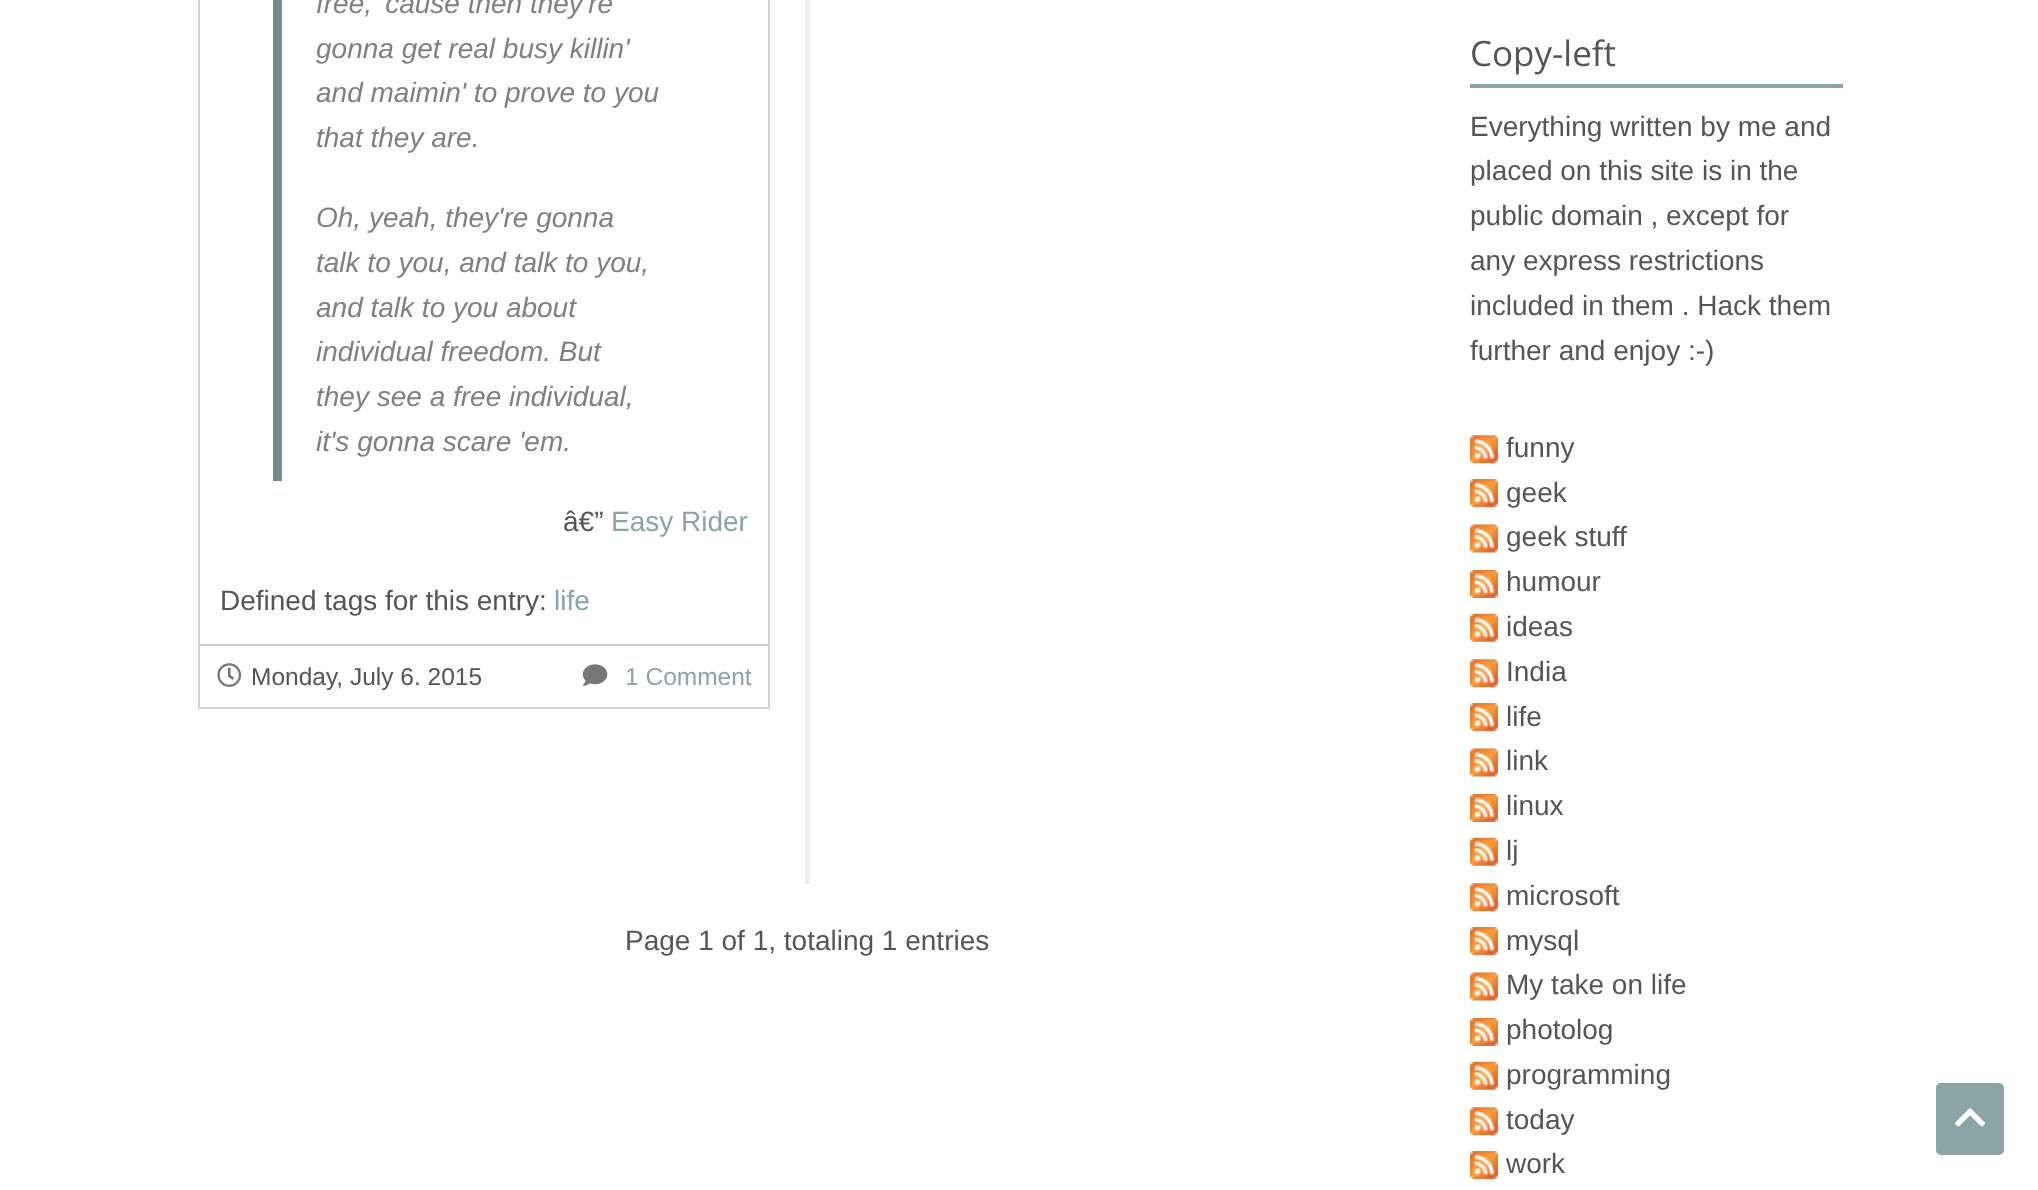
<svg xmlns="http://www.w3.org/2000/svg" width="2038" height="1190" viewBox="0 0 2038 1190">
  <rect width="100%" height="100%" fill="rgb(255,255,255)"/>
  <rect x="199" y="-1" width="570" height="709" fill="none" stroke="rgb(212,212,212)" stroke-width="2"/>
  <rect x="273" y="0" width="9" height="481" fill="rgb(118,139,140)"/>
  <g font-family="Liberation Sans" font-size="28" font-style="italic" fill="rgb(128,128,128)">
    <text>
      <tspan x="316" y="13">free, 'cause then they're</tspan>
      <tspan x="316" y="58">gonna get real busy killin'</tspan>
      <tspan x="316" y="102">and maimin' to prove to you</tspan>
      <tspan x="316" y="147">that they are.</tspan>
    </text>
    <text>
      <tspan x="316" y="227">Oh, yeah, they're gonna</tspan>
      <tspan x="316" y="272">talk to you, and talk to you,</tspan>
      <tspan x="316" y="317">and talk to you about</tspan>
      <tspan x="316" y="361">individual freedom. But</tspan>
      <tspan x="316" y="406">they see a free individual,</tspan>
      <tspan x="316" y="451">it's gonna scare 'em.</tspan>
    </text>
  </g>
  <text x="563" y="531" font-family="Liberation Sans" font-size="28" fill="rgb(85,85,85)">â€”</text>
  <text x="611" y="531" font-family="Liberation Sans" font-size="28" fill="rgb(139,164,165)">Easy Rider</text>
  <text x="220" y="610" font-family="Liberation Sans" font-size="28" fill="rgb(85,85,85)">Defined tags for this entry:</text>
  <text x="554" y="610" font-family="Liberation Sans" font-size="28" fill="rgb(139,164,165)">life</text>
  <rect x="200" y="644" width="568" height="2" fill="rgb(204,204,204)"/>
  <image x="217" y="663" width="25" height="24" href="pic1.png"/>
  <text x="251" y="685" font-family="Liberation Sans" font-size="24.5" fill="rgb(85,85,85)">Monday, July 6. 2015</text>
  <image x="582" y="664" width="26" height="22" href="pic2.png"/>
  <text x="625" y="685" font-family="Liberation Sans" font-size="24.5" fill="rgb(139,164,165)">1 Comment</text>
  <rect x="805" y="0" width="5" height="884" fill="rgb(238,238,238)"/>
  <text x="625" y="950" font-family="Liberation Sans" font-size="28" fill="rgb(85,85,85)">Page 1 of 1, totaling 1 entries</text>
  <rect x="1470" y="84" width="373" height="4" fill="rgb(139,164,165)"/>
  <text x="1470" y="66" font-family="Open Sans" font-size="35" fill="rgb(85,85,85)">Copy-left</text>
  <g font-family="Liberation Sans" font-size="28" fill="rgb(85,85,85)">
    <text>
      <tspan x="1470" y="136">Everything written by me and</tspan>
      <tspan x="1470" y="180">placed on this site is in the</tspan>
      <tspan x="1470" y="225">public domain , except for</tspan>
      <tspan x="1470" y="270">any express restrictions</tspan>
      <tspan x="1470" y="315">included in them . Hack them</tspan>
      <tspan x="1470" y="360">further and enjoy :-)</tspan>
    </text>
  </g>
  <image x="1470" y="435" width="28" height="29" href="pic3.png"/>
  <text x="1506" y="457" font-family="Liberation Sans" font-size="28" fill="rgb(85,85,85)">funny</text>
  <image x="1470" y="479" width="28" height="28" href="pic4.png"/>
  <text x="1506" y="502" font-family="Liberation Sans" font-size="28" fill="rgb(85,85,85)">geek</text>
  <image x="1470" y="524" width="28" height="29" href="pic5.png"/>
  <text x="1506" y="546" font-family="Liberation Sans" font-size="28" fill="rgb(85,85,85)">geek stuff</text>
  <image x="1470" y="570" width="28" height="28" href="pic4.png"/>
  <text x="1506" y="591" font-family="Liberation Sans" font-size="28" fill="rgb(85,85,85)">humour</text>
  <image x="1470" y="613" width="28" height="29" href="pic6.png"/>
  <text x="1506" y="636" font-family="Liberation Sans" font-size="28" fill="rgb(85,85,85)">ideas</text>
  <image x="1470" y="659" width="28" height="29" href="pic3.png"/>
  <text x="1506" y="681" font-family="Liberation Sans" font-size="28" fill="rgb(85,85,85)">India</text>
  <image x="1470" y="703" width="28" height="28" href="pic4.png"/>
  <text x="1506" y="726" font-family="Liberation Sans" font-size="28" fill="rgb(85,85,85)">life</text>
  <image x="1470" y="748" width="28" height="29" href="pic5.png"/>
  <text x="1506" y="770" font-family="Liberation Sans" font-size="28" fill="rgb(85,85,85)">link</text>
  <image x="1470" y="794" width="28" height="28" href="pic4.png"/>
  <text x="1506" y="815" font-family="Liberation Sans" font-size="28" fill="rgb(85,85,85)">linux</text>
  <image x="1470" y="837" width="28" height="29" href="pic6.png"/>
  <text x="1506" y="860" font-family="Liberation Sans" font-size="28" fill="rgb(85,85,85)">lj</text>
  <image x="1470" y="883" width="28" height="29" href="pic3.png"/>
  <text x="1506" y="905" font-family="Liberation Sans" font-size="28" fill="rgb(85,85,85)">microsoft</text>
  <image x="1470" y="927" width="28" height="28" href="pic4.png"/>
  <text x="1506" y="950" font-family="Liberation Sans" font-size="28" fill="rgb(85,85,85)">mysql</text>
  <image x="1470" y="972" width="28" height="29" href="pic5.png"/>
  <text x="1506" y="994" font-family="Liberation Sans" font-size="28" fill="rgb(85,85,85)">My take on life</text>
  <image x="1470" y="1018" width="28" height="28" href="pic4.png"/>
  <text x="1506" y="1039" font-family="Liberation Sans" font-size="28" fill="rgb(85,85,85)">photolog</text>
  <image x="1470" y="1061" width="28" height="29" href="pic6.png"/>
  <text x="1506" y="1084" font-family="Liberation Sans" font-size="28" fill="rgb(85,85,85)">programming</text>
  <image x="1470" y="1107" width="28" height="29" href="pic3.png"/>
  <text x="1506" y="1129" font-family="Liberation Sans" font-size="28" fill="rgb(85,85,85)">today</text>
  <image x="1470" y="1151" width="28" height="28" href="pic4.png"/>
  <text x="1506" y="1173" font-family="Liberation Sans" font-size="28" fill="rgb(85,85,85)">work</text>
  <rect x="1937" y="1084" width="66" height="70" rx="4" fill="rgb(139,164,165)" stroke="rgb(139,164,165)" stroke-width="2"/>
  <image x="1955" y="1108" width="30" height="19" href="pic7.png"/>
</svg>
